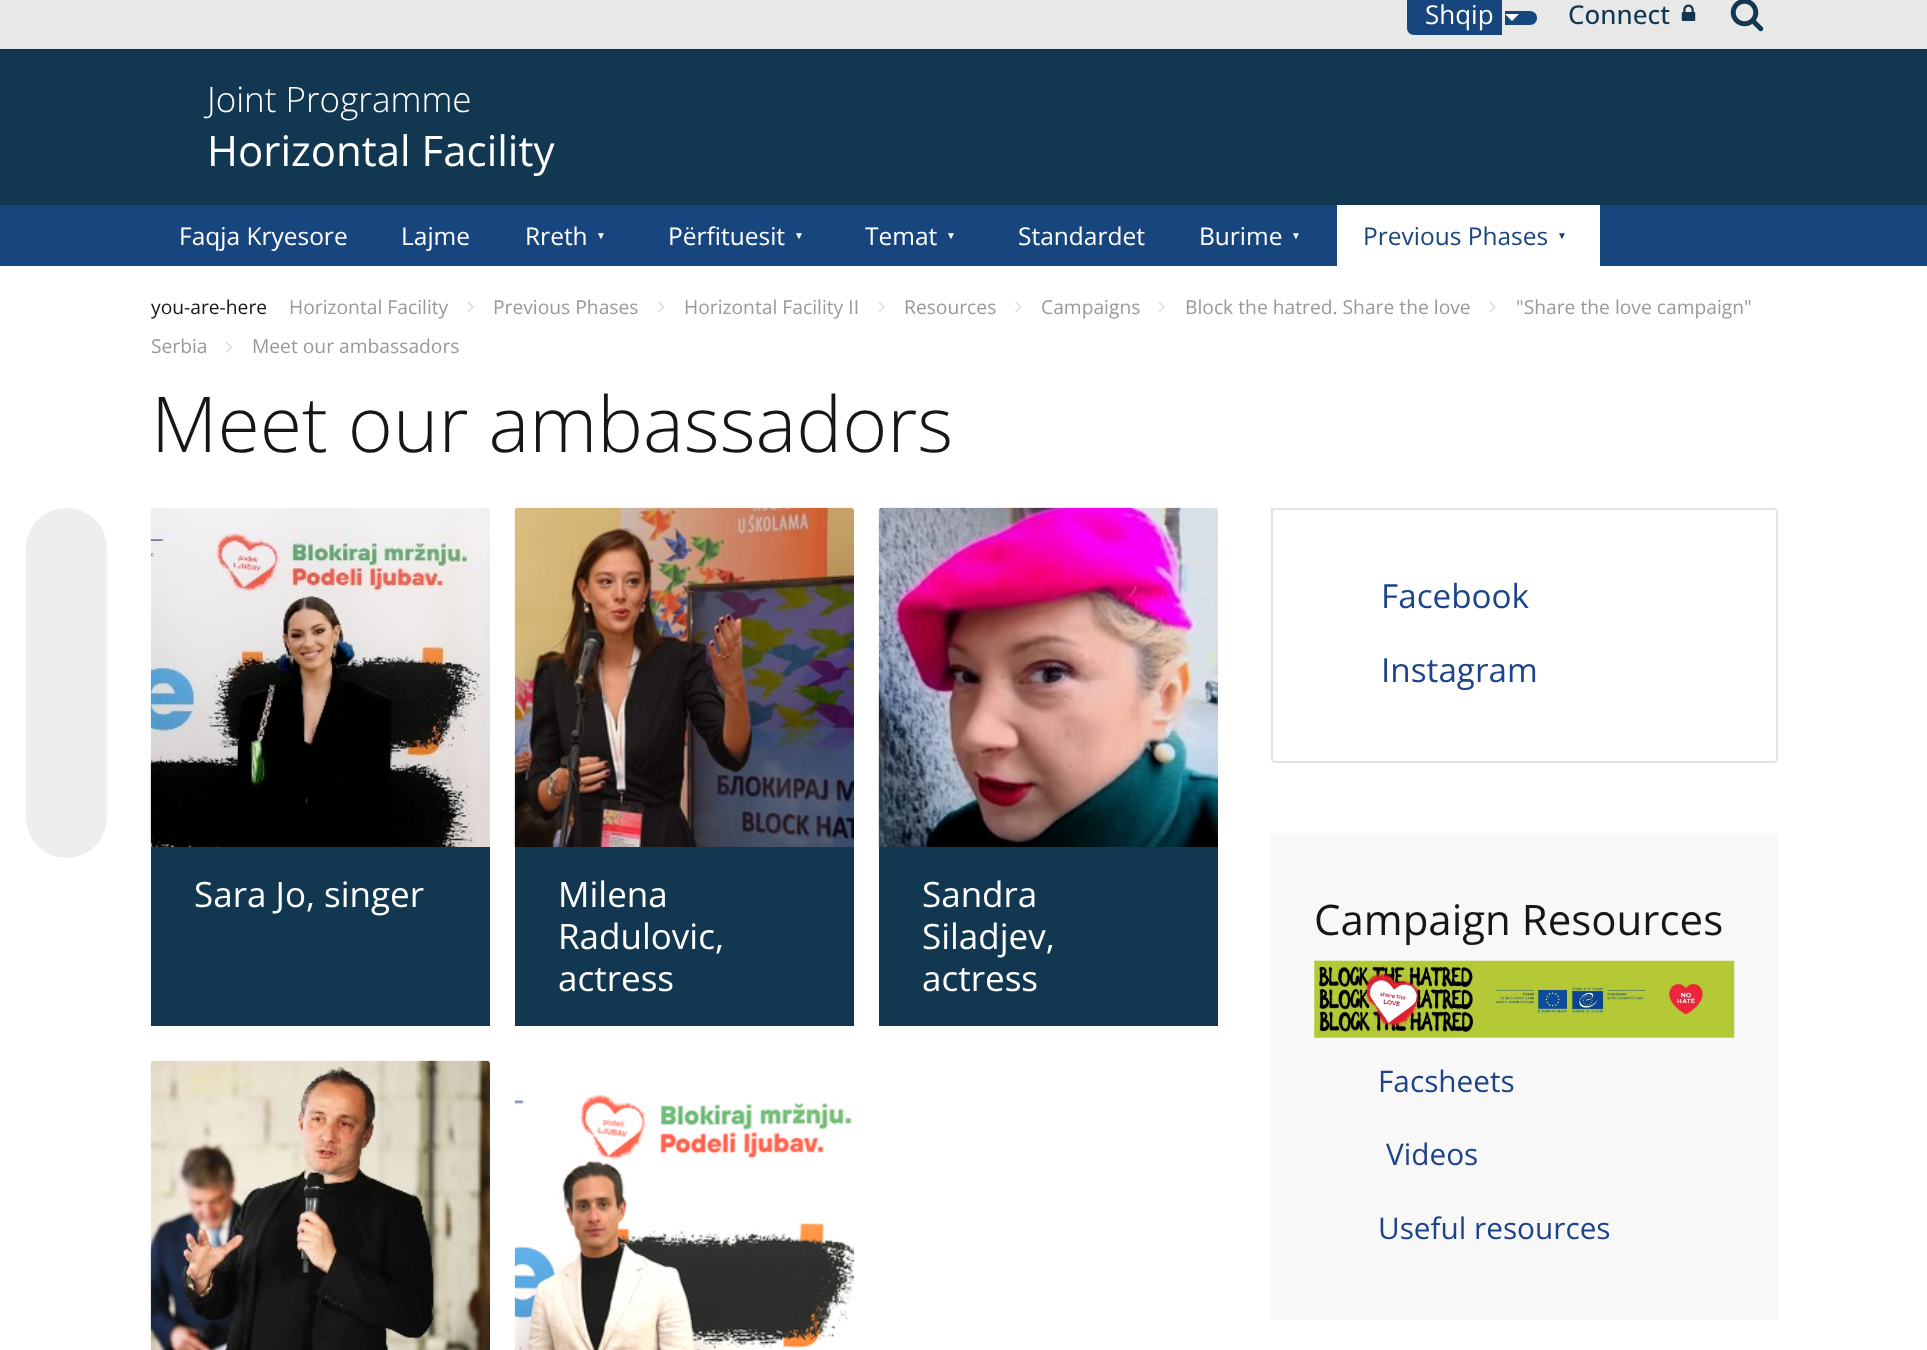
<svg xmlns="http://www.w3.org/2000/svg" width="1927" height="1350" viewBox="0 0 1927 1350">
  <rect width="100%" height="100%" fill="rgb(255,255,255)"/>
  <rect x="0" y="0" width="1927" height="49" fill="rgb(232,232,232)"/>
  <path d="M1414-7H1502V35H1414C1410 35 1407 32 1407 28V0C1407-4 1410-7 1414-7Z" fill="rgb(23,69,126)"/>
  <path d="M1505 11H1530C1534 11 1537 14 1537 18C1537 22 1534 25 1530 25H1505Z" fill="rgb(23,69,126)"/>
  <text x="1425" y="24" font-family="Open Sans" font-size="26" fill="rgb(255,255,255)">Shqip</text>
  <path d="M1505 14H1519L1512 21Z" fill="rgb(255,255,255)"/>
  <text x="1568" y="24" font-family="Open Sans" font-size="26" font-weight="500" fill="rgb(18,55,81)">Connect</text>
  <image x="1681" y="4" width="15" height="17" href="pic1.png"/>
  <image x="1730" y="0" width="34" height="32" href="pic2.png"/>
  <rect x="0" y="49" width="1927" height="156" fill="rgb(18,55,81)"/>
  <text x="207" y="112" font-family="Open Sans" font-size="35" font-weight="300" fill="rgb(255,255,255)">Joint Programme</text>
  <text x="207" y="166" font-family="Open Sans" font-size="42" fill="rgb(255,255,255)">Horizontal Facility</text>
  <rect x="0" y="205" width="1927" height="61" fill="rgb(23,69,126)"/>
  <g font-family="Open Sans" font-size="24.5" fill="rgb(255,255,255)">
    <text x="179" y="245">Faqja Kryesore</text>
    <text x="401" y="245">Lajme</text>
    <text x="525" y="245">Rreth</text>
  </g>
  <text x="596" y="239" font-family="Liberation Sans" font-size="10" letter-spacing="7" fill="rgb(255,255,255)">▼</text>
  <text x="668" y="245" font-family="Open Sans" font-size="24.5" fill="rgb(255,255,255)">Përfituesit</text>
  <text x="794" y="239" font-family="Liberation Sans" font-size="10" letter-spacing="7" fill="rgb(255,255,255)">▼</text>
  <text x="865" y="245" font-family="Open Sans" font-size="24.5" fill="rgb(255,255,255)">Temat</text>
  <text x="946" y="239" font-family="Liberation Sans" font-size="10" letter-spacing="7" fill="rgb(255,255,255)">▼</text>
  <g font-family="Open Sans" font-size="24.5" fill="rgb(255,255,255)">
    <text x="1018" y="245">Standardet</text>
    <text x="1199" y="245">Burime</text>
  </g>
  <text x="1291" y="239" font-family="Liberation Sans" font-size="10" letter-spacing="7" fill="rgb(255,255,255)">▼</text>
  <rect x="1337" y="205" width="263" height="61" fill="rgb(255,255,255)"/>
  <text x="1363" y="245" font-family="Open Sans" font-size="24.5" fill="rgb(23,69,126)">Previous Phases</text>
  <text x="1557" y="239" font-family="Liberation Sans" font-size="10" letter-spacing="7" fill="rgb(23,69,126)">▼</text>
  <text x="151" y="314" font-family="Open Sans" font-size="19.25" fill="rgb(22,22,22)">you-are-here</text>
  <image x="1489" y="301" width="7" height="12" href="pic3.png"/>
  <g font-family="Open Sans" font-size="19.25" fill="rgb(153,153,153)">
    <text x="1516" y="314">"Share the love campaign"</text>
    <text x="151" y="353">Serbia</text>
    <text x="289" y="314">Horizontal Facility</text>
  </g>
  <image x="467" y="301" width="7" height="12" href="pic3.png"/>
  <text x="493" y="314" font-family="Open Sans" font-size="19.25" fill="rgb(153,153,153)">Previous Phases</text>
  <image x="658" y="302" width="7" height="11" href="pic4.png"/>
  <text x="684" y="314" font-family="Open Sans" font-size="19.25" fill="rgb(153,153,153)">Horizontal Facility II</text>
  <image x="878" y="301" width="7" height="12" href="pic5.png"/>
  <text x="904" y="314" font-family="Open Sans" font-size="19.25" fill="rgb(153,153,153)">Resources</text>
  <image x="1015" y="302" width="7" height="11" href="pic4.png"/>
  <text x="1041" y="314" font-family="Open Sans" font-size="19.25" fill="rgb(153,153,153)">Campaigns</text>
  <image x="1158" y="301" width="7" height="12" href="pic5.png"/>
  <text x="1185" y="314" font-family="Open Sans" font-size="19.25" fill="rgb(153,153,153)">Block the hatred. Share the love</text>
  <image x="226" y="342" width="6" height="11" href="pic6.png"/>
  <text x="252" y="353" font-family="Open Sans" font-size="19.25" fill="rgb(153,153,153)">Meet our ambassadors</text>
  <text x="151" y="452" font-family="Open Sans" font-size="77" font-weight="300" fill="rgb(22,22,22)">Meet our ambassadors</text>
  <rect x="26" y="508" width="81" height="350" rx="40.5" fill="rgb(238,238,238)"/>
  <image x="150" y="508" width="340" height="339" href="pic7.png"/>
  <rect x="151" y="847" width="339" height="179" fill="rgb(18,55,81)"/>
  <text x="194" y="907" font-family="Open Sans" font-size="35" fill="rgb(255,255,255)">Sara Jo, singer</text>
  <image x="514" y="507" width="340" height="340" href="pic8.png"/>
  <rect x="515" y="847" width="339" height="179" fill="rgb(18,55,81)"/>
  <g font-family="Open Sans" font-size="35" fill="rgb(255,255,255)">
    <text>
      <tspan x="558" y="907">Milena</tspan>
      <tspan x="558" y="949">Radulovic,</tspan>
      <tspan x="558" y="991">actress</tspan>
    </text>
  </g>
  <image x="878" y="507" width="340" height="340" href="pic9.png"/>
  <rect x="879" y="847" width="339" height="179" fill="rgb(18,55,81)"/>
  <g font-family="Open Sans" font-size="35" fill="rgb(255,255,255)">
    <text>
      <tspan x="922" y="907">Sandra</tspan>
      <tspan x="922" y="949">Siladjev,</tspan>
      <tspan x="922" y="991">actress</tspan>
    </text>
  </g>
  <image x="150" y="1060" width="340" height="290" href="pic10.png"/>
  <image x="514" y="1094" width="340" height="256" href="pic11.png"/>
  <path d="M1272 509H1774C1775.5 509 1777 510.5 1777 512V759C1777 760.5 1775.5 762 1774 762H1275C1273.5 762 1272 760.5 1272 759Z" fill="none" stroke="rgb(227,227,227)" stroke-width="2"/>
  <g font-family="Open Sans" font-size="33.25" fill="rgb(29,68,138)">
    <text x="1381" y="608">Facebook</text>
    <text x="1381" y="682">Instagram</text>
  </g>
  <rect x="1271" y="833" width="507" height="487" fill="rgb(248,248,248)"/>
  <text x="1314" y="935" font-family="Open Sans" font-size="42" fill="rgb(22,22,22)">Campaign Resources</text>
  <image x="1314" y="960" width="421" height="78" href="pic12.png"/>
  <g font-family="Open Sans" font-size="29.75" fill="rgb(29,68,138)">
    <text x="1378" y="1092">Facsheets</text>
    <text x="1386" y="1165">Videos</text>
    <text x="1378" y="1239">Useful resources</text>
  </g>
</svg>
